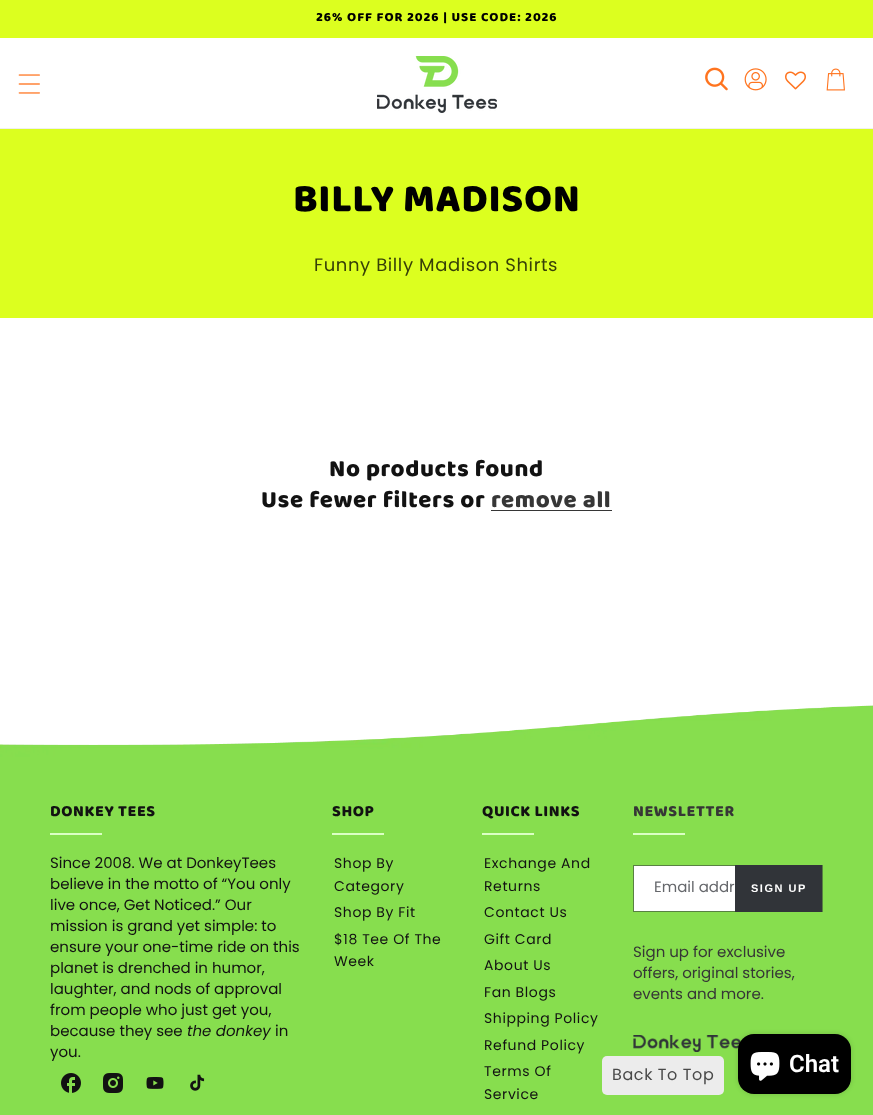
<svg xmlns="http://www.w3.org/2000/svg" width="873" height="1115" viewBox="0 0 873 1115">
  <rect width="100%" height="100%" fill="rgb(255,255,255)"/>
  <rect x="0" y="0" width="873" height="38" fill="rgb(220,255,31)"/>
  <text x="316" y="21" font-family="'Baloo 2'" font-size="13" font-weight="800" letter-spacing="1" fill="rgb(0,0,0)">26% OFF FOR 2026 | USE CODE: 2026</text>
  <rect x="0" y="128" width="873" height="1" fill="rgb(239,239,239)"/>
  <image x="18" y="74" width="22" height="20" href="pic1.png"/>
  <image x="377" y="56" width="120" height="57" href="pic2.png"/>
  <image x="705" y="67" width="23" height="24" href="pic3.png"/>
  <image x="744" y="68" width="23" height="23" href="pic4.png"/>
  <image x="785" y="71" width="21" height="19" href="pic5.png"/>
  <image x="826" y="68" width="19" height="23" href="pic6.png"/>
  <rect x="0" y="129" width="873" height="189" fill="rgb(220,255,31)"/>
  <text x="293" y="211" font-family="'Baloo 2'" font-size="40" font-weight="800" letter-spacing="0.6" fill="rgb(0,0,0)">BILLY MADISON</text>
  <text x="314" y="271" font-family="Poppins" font-size="18" letter-spacing="0.6" fill="rgb(55,64,8)">Funny Billy Madison Shirts</text>
  <g font-family="'Baloo 2'" font-size="24" font-weight="800" letter-spacing="0.6" fill="rgb(18,18,18)">
    <text x="329" y="476">No products found</text>
    <text x="261" y="507">Use fewer filters or</text>
  </g>
  <text x="491" y="507" font-family="'Baloo 2'" font-size="24" font-weight="800" letter-spacing="0.6" fill="rgb(54,54,54)">remove all</text>
  <rect x="491" y="510" width="121" height="1" fill="rgb(54,54,54)"/>
  <image x="0" y="705" width="873" height="410" href="pic7.png"/>
  <rect x="602" y="1056" width="122" height="39" rx="5" fill="rgb(236,236,236)"/>
  <text x="612" y="1080" font-family="Poppins" font-size="16" letter-spacing="0.6" fill="rgb(73,73,73)">Back To Top</text>
  <text x="50" y="816" font-family="'Baloo 2'" font-size="16" font-weight="800" letter-spacing="0.6" fill="rgb(18,18,18)">DONKEY TEES</text>
  <rect x="50" y="833" width="52" height="2" fill="rgb(219,255,196)"/>
  <g font-family="Poppins" font-size="15" fill="rgb(18,18,18)">
    <text>
      <tspan x="50" y="868">Since 2008. We at DonkeyTees</tspan>
      <tspan x="50" y="889">believe in the motto of “You only</tspan>
      <tspan x="50" y="910">live once, Get Noticed.” Our</tspan>
      <tspan x="50" y="931">mission is grand yet simple: to</tspan>
      <tspan x="50" y="952">ensure your one-time ride on this</tspan>
      <tspan x="50" y="973">planet is drenched in humor,</tspan>
      <tspan x="50" y="994">laughter, and nods of approval</tspan>
      <tspan x="50" y="1015">from people who just get you,</tspan>
      <tspan x="50" y="1036">because they see</tspan>
    </text>
  </g>
  <text x="187" y="1036" font-family="Poppins" font-size="15" font-style="italic" fill="rgb(18,18,18)">the donkey</text>
  <g font-family="Poppins" font-size="15" fill="rgb(18,18,18)">
    <text x="275" y="1036">in</text>
    <text x="50" y="1057">you.</text>
  </g>
  <image x="61" y="1073" width="20" height="20" href="pic8.png"/>
  <image x="103" y="1073" width="20" height="20" href="pic9.png"/>
  <image x="146" y="1077" width="18" height="12" href="pic10.png"/>
  <image x="190" y="1074" width="15" height="17" href="pic11.png"/>
  <text x="332" y="816" font-family="'Baloo 2'" font-size="16" font-weight="800" letter-spacing="0.6" fill="rgb(18,18,18)">SHOP</text>
  <rect x="332" y="833" width="52" height="2" fill="rgb(219,255,196)"/>
  <g font-family="Poppins" font-size="14" letter-spacing="0.6" fill="rgb(18,18,18)">
    <text>
      <tspan x="334" y="868">Shop By</tspan>
      <tspan x="334" y="891">Category</tspan>
      <tspan x="334" y="917">Shop By Fit</tspan>
      <tspan x="334" y="944">$18 Tee Of The</tspan>
      <tspan x="334" y="966">Week</tspan>
    </text>
  </g>
  <text x="482" y="816" font-family="'Baloo 2'" font-size="16" font-weight="800" letter-spacing="0.6" fill="rgb(18,18,18)">QUICK LINKS</text>
  <rect x="482" y="833" width="52" height="2" fill="rgb(219,255,196)"/>
  <g font-family="Poppins" font-size="14" letter-spacing="0.6" fill="rgb(18,18,18)">
    <text>
      <tspan x="484" y="868">Exchange And</tspan>
      <tspan x="484" y="891">Returns</tspan>
      <tspan x="484" y="917">Contact Us</tspan>
      <tspan x="484" y="944">Gift Card</tspan>
      <tspan x="484" y="970">About Us</tspan>
      <tspan x="484" y="997">Fan Blogs</tspan>
      <tspan x="484" y="1023">Shipping Policy</tspan>
      <tspan x="484" y="1050">Refund Policy</tspan>
      <tspan x="484" y="1076">Terms Of</tspan>
      <tspan x="484" y="1099">Service</tspan>
    </text>
  </g>
  <text x="633" y="816" font-family="'Baloo 2'" font-size="16" font-weight="800" letter-spacing="0.6" fill="rgb(54,54,54)">NEWSLETTER</text>
  <rect x="633" y="833" width="52" height="2" fill="rgb(219,255,196)"/>
  <rect x="634" y="866" width="101" height="45" fill="rgb(255,255,255)"/>
  <rect x="633.5" y="865.5" width="189" height="46" fill="none" stroke="rgb(88,129,66)"/>
  <text x="654" y="892" font-family="Poppins" font-size="15" fill="rgb(101,103,107)">Email addr</text>
  <rect x="735" y="865" width="87" height="47" fill="rgb(49,52,57)"/>
  <text x="751" y="892" font-family="Liberation Sans" font-size="11" font-weight="bold" letter-spacing="1.5" fill="rgb(255,255,255)">SIGN UP</text>
  <g font-family="Poppins" font-size="15" fill="rgb(54,54,54)">
    <text>
      <tspan x="633" y="957">Sign up for exclusive</tspan>
      <tspan x="633" y="978">offers, original stories,</tspan>
      <tspan x="633" y="999">events and more.</tspan>
    </text>
  </g>
  <image x="633" y="1035" width="111" height="17" href="pic12.png"/>
  <rect x="738" y="1034" width="113" height="60" rx="16" fill="rgba(0,0,0,0.15)" filter="blur(2.5px)"/>
  <rect x="738" y="1034" width="113" height="60" rx="16" fill="rgb(0,0,0)"/>
  <image x="750" y="1052" width="30" height="29" href="pic13.png"/>
  <text x="789" y="1072" font-family="Roboto" font-size="24" font-weight="600" fill="rgb(255,255,255)">Chat</text>
</svg>
